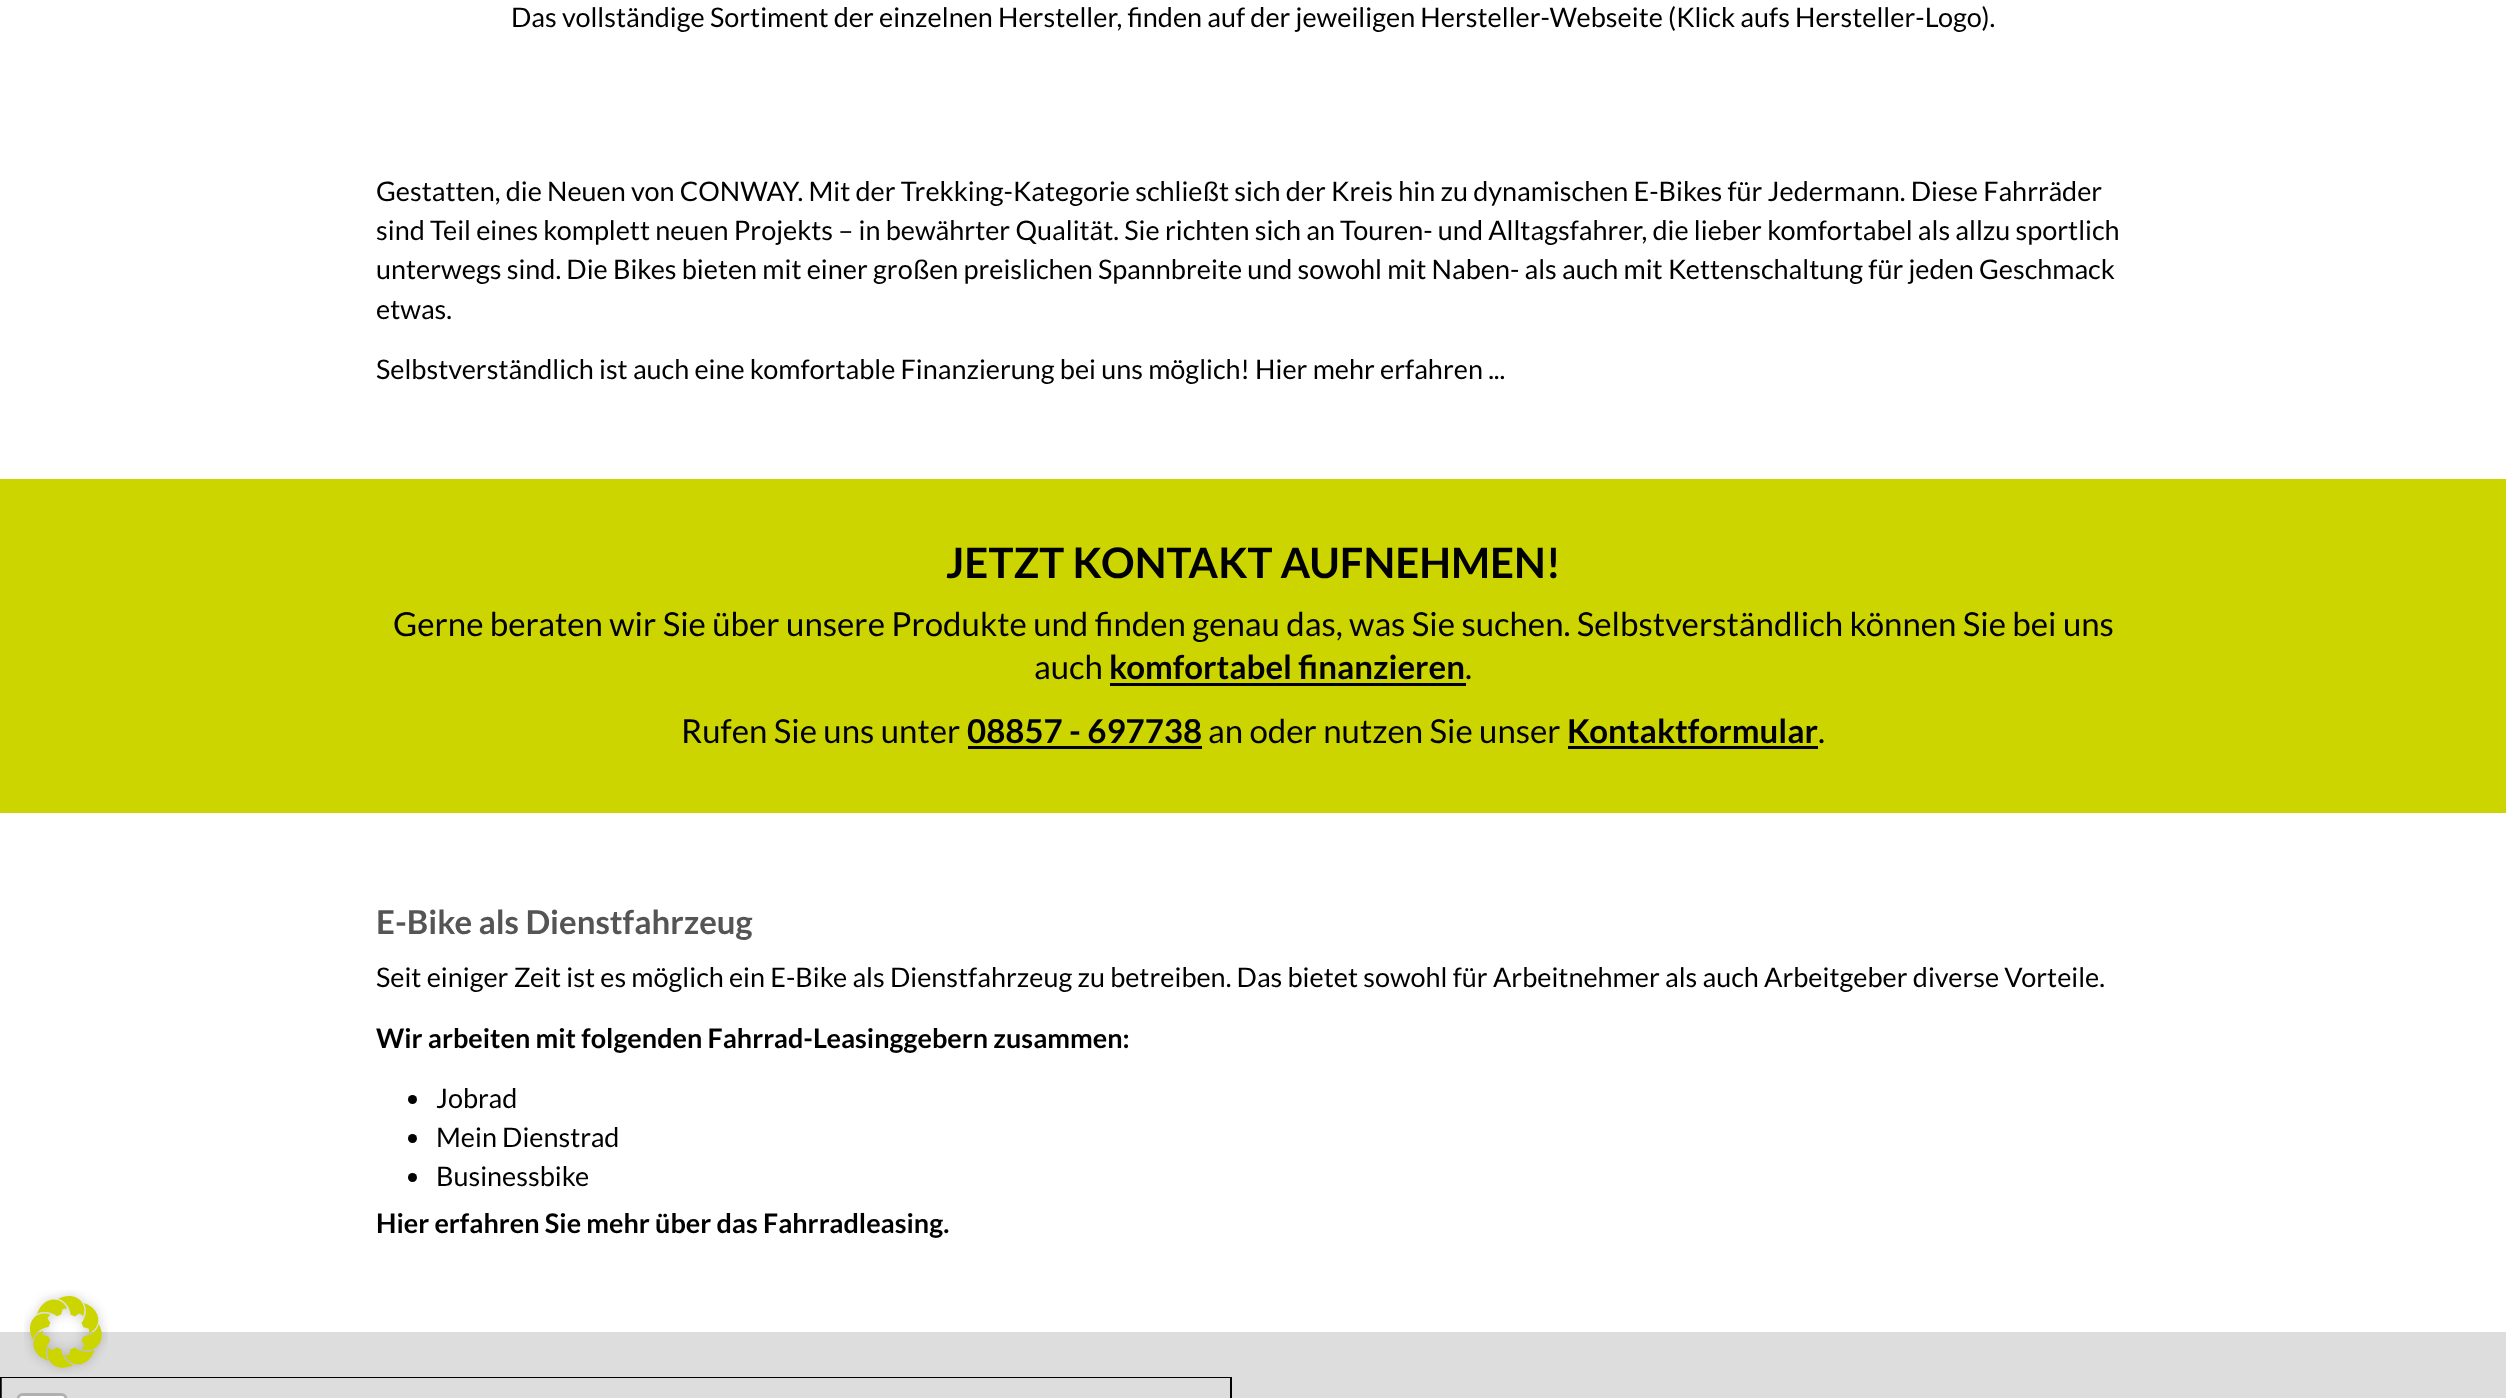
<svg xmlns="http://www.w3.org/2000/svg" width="2506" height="1398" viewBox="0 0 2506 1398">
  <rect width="100%" height="100%" fill="rgb(255,255,255)"/>
  <g font-family="Lato" font-size="27" fill="rgb(0,0,0)">
    <text x="511" y="27">Das vollständige Sortiment der einzelnen Hersteller, finden auf der jeweiligen Hersteller-Webseite (Klick aufs Hersteller-Logo).</text>
    <text>
      <tspan x="376" y="201">Gestatten, die Neuen von CONWAY. Mit der Trekking-Kategorie schließt sich der Kreis hin zu dynamischen E-Bikes für Jedermann. Diese Fahrräder</tspan>
      <tspan x="376" y="240">sind Teil eines komplett neuen Projekts – in bewährter Qualität. Sie richten sich an Touren- und Alltagsfahrer, die lieber komfortabel als allzu sportlich</tspan>
      <tspan x="376" y="279">unterwegs sind. Die Bikes bieten mit einer großen preislichen Spannbreite und sowohl mit Naben- als auch mit Kettenschaltung für jeden Geschmack</tspan>
      <tspan x="376" y="319">etwas.</tspan>
    </text>
    <text x="376" y="379">Selbstverständlich ist auch eine komfortable Finanzierung bei uns möglich! Hier mehr erfahren ...</text>
  </g>
  <rect x="0" y="479" width="2506" height="334" fill="rgb(204,213,0)"/>
  <text x="946" y="578" font-family="Lato" font-size="42" font-weight="bold" fill="rgb(0,0,0)">JETZT KONTAKT AUFNEHMEN!</text>
  <g font-family="Lato" font-size="33" fill="rgb(0,0,0)">
    <text x="393" y="636">Gerne beraten wir Sie über unsere Produkte und finden genau das, was Sie suchen. Selbstverständlich können Sie bei uns</text>
    <text x="1034" y="679">auch</text>
  </g>
  <text x="1109" y="679" font-family="Lato" font-size="33" font-weight="bold" fill="rgb(0,0,0)">komfortabel finanzieren</text>
  <rect x="1110" y="683" width="356" height="3" fill="rgb(0,0,0)"/>
  <g font-family="Lato" font-size="33" fill="rgb(0,0,0)">
    <text x="1465" y="679">.</text>
    <text x="681" y="743">Rufen Sie uns unter</text>
  </g>
  <text x="967" y="743" font-family="Lato" font-size="33" font-weight="bold" fill="rgb(0,0,0)">08857 - 697738</text>
  <rect x="968" y="746" width="234" height="3" fill="rgb(0,0,0)"/>
  <text x="1208" y="743" font-family="Lato" font-size="33" fill="rgb(0,0,0)">an oder nutzen Sie unser</text>
  <text x="1567" y="743" font-family="Lato" font-size="33" font-weight="bold" fill="rgb(0,0,0)">Kontaktformular</text>
  <rect x="1568" y="746" width="250" height="3" fill="rgb(0,0,0)"/>
  <text x="1818" y="743" font-family="Lato" font-size="33" fill="rgb(0,0,0)">.</text>
  <text x="376" y="934" font-family="Lato" font-size="33" font-weight="bold" fill="rgb(85,85,85)">E-Bike als Dienstfahrzeug</text>
  <text x="376" y="987" font-family="Lato" font-size="27" fill="rgb(0,0,0)">Seit einiger Zeit ist es möglich ein E-Bike als Dienstfahrzeug zu betreiben. Das bietet sowohl für Arbeitnehmer als auch Arbeitgeber diverse Vorteile.</text>
  <text x="376" y="1048" font-family="Lato" font-size="27" font-weight="bold" fill="rgb(0,0,0)">Wir arbeiten mit folgenden Fahrrad-Leasinggebern zusammen:</text>
  <circle cx="412.5" cy="1099.5" r="4.5" fill="rgb(0,0,0)"/>
  <text x="436" y="1108" font-family="Lato" font-size="27" fill="rgb(0,0,0)">Jobrad</text>
  <circle cx="412.5" cy="1138.5" r="4.5" fill="rgb(0,0,0)"/>
  <text x="436" y="1147" font-family="Lato" font-size="27" fill="rgb(0,0,0)">Mein Dienstrad</text>
  <circle cx="412.5" cy="1177.5" r="4.5" fill="rgb(0,0,0)"/>
  <text x="436" y="1186" font-family="Lato" font-size="27" fill="rgb(0,0,0)">Businessbike</text>
  <text x="376" y="1233" font-family="Lato" font-size="27" font-weight="bold" fill="rgb(0,0,0)">Hier erfahren Sie mehr über das Fahrradleasing.</text>
  <rect x="0" y="1332" width="2506" height="66" fill="rgb(221,221,221)"/>
  <rect x="1" y="1378" width="1230" height="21" fill="none" stroke="rgb(0,0,0)" stroke-width="2"/>
  <image x="1" y="1378" width="1229" height="20" href="pic1.png"/>
  <image x="24" y="1290" width="84" height="84" href="pic2.png"/>
</svg>
